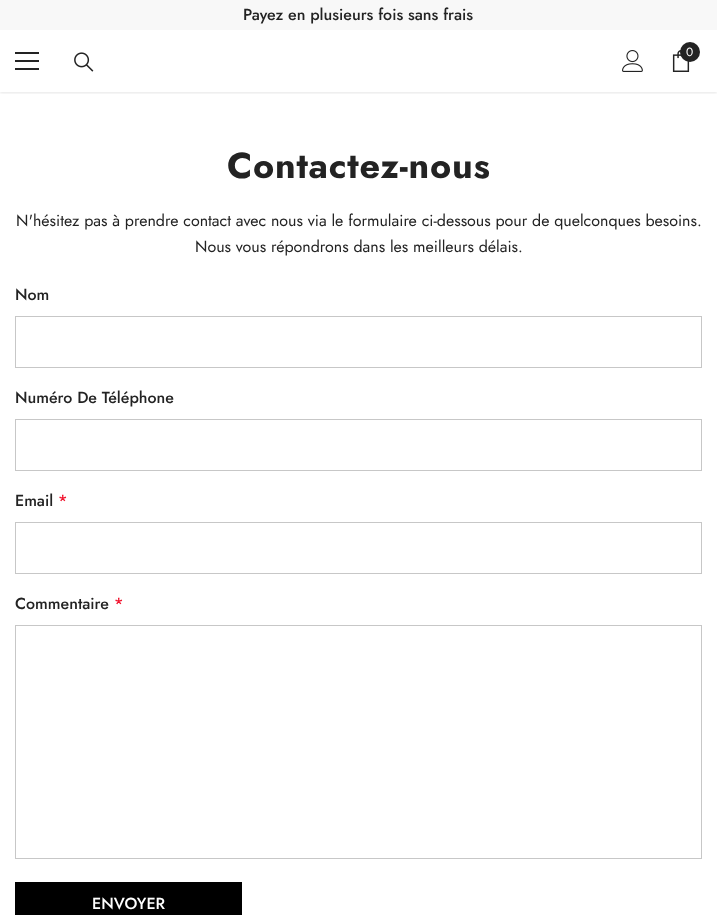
<svg xmlns="http://www.w3.org/2000/svg" width="717" height="915" viewBox="0 0 717 915">
  <defs>
    <clipPath id="clip1"><rect x="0" y="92" width="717" height="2"/></clipPath>
  </defs>
  <rect width="100%" height="100%" fill="rgb(255,255,255)"/>
  <rect x="0" y="0" width="717" height="30" fill="rgb(248,248,248)"/>
  <text x="243" y="20" font-family="Jost" font-size="16" font-weight="500" fill="rgb(35,35,35)">Payez en plusieurs fois sans frais</text>
  <g clip-path="url(#clip1)">
    <rect x="0" y="31" width="717" height="62" fill="rgba(0,0,0,0.1)" filter="blur(1.5px)"/>
  </g>
  <rect x="15" y="60" width="24" height="2" fill="rgb(35,35,35)"/>
  <rect x="15" y="52" width="24" height="2" fill="rgb(35,35,35)"/>
  <rect x="15" y="68" width="24" height="2" fill="rgb(35,35,35)"/>
  <image x="74" y="52" width="20" height="20" href="pic1.png"/>
  <image x="622" y="50" width="21" height="22" href="pic2.png"/>
  <image x="672" y="50" width="18" height="22" href="pic3.png"/>
  <circle cx="690" cy="52" r="10" fill="rgb(35,35,35)"/>
  <text x="686" y="56" font-family="Jost" font-size="12" fill="rgb(255,255,255)">0</text>
  <text x="227" y="178" font-family="Jost" font-size="36" font-weight="bold" letter-spacing="0.75" fill="rgb(35,35,35)">Contactez-nous</text>
  <g font-family="Jost" font-size="16" fill="rgb(35,35,35)">
    <text x="16" y="226">N'hésitez pas à prendre contact avec nous via le formulaire ci-dessous pour de quelconques besoins.</text>
    <text x="195" y="252">Nous vous répondrons dans les meilleurs délais.</text>
  </g>
  <text x="15" y="300" font-family="Jost" font-size="16" font-weight="500" fill="rgb(35,35,35)">Nom</text>
  <rect x="15.5" y="316.5" width="686" height="51" fill="none" stroke="rgb(199,199,199)"/>
  <text x="15" y="403" font-family="Jost" font-size="16" font-weight="500" fill="rgb(35,35,35)">Numéro De Téléphone</text>
  <rect x="15.5" y="419.5" width="686" height="51" fill="none" stroke="rgb(199,199,199)"/>
  <text x="15" y="506" font-family="Jost" font-size="16" font-weight="500" fill="rgb(35,35,35)">Email</text>
  <text x="58" y="506" font-family="Jost" font-size="16" font-weight="500" fill="rgb(241,21,47)">*</text>
  <rect x="15.5" y="522.5" width="686" height="51" fill="none" stroke="rgb(199,199,199)"/>
  <text x="15" y="609" font-family="Jost" font-size="16" font-weight="500" fill="rgb(35,35,35)">Commentaire</text>
  <text x="114" y="609" font-family="Jost" font-size="16" font-weight="500" fill="rgb(241,21,47)">*</text>
  <rect x="15.5" y="625.5" width="686" height="233" fill="none" stroke="rgb(199,199,199)"/>
  <rect x="15" y="882" width="227" height="33" fill="rgb(0,0,0)"/>
  <text x="92" y="909" font-family="Jost" font-size="16" font-weight="500" fill="rgb(255,255,255)">ENVOYER</text>
</svg>
